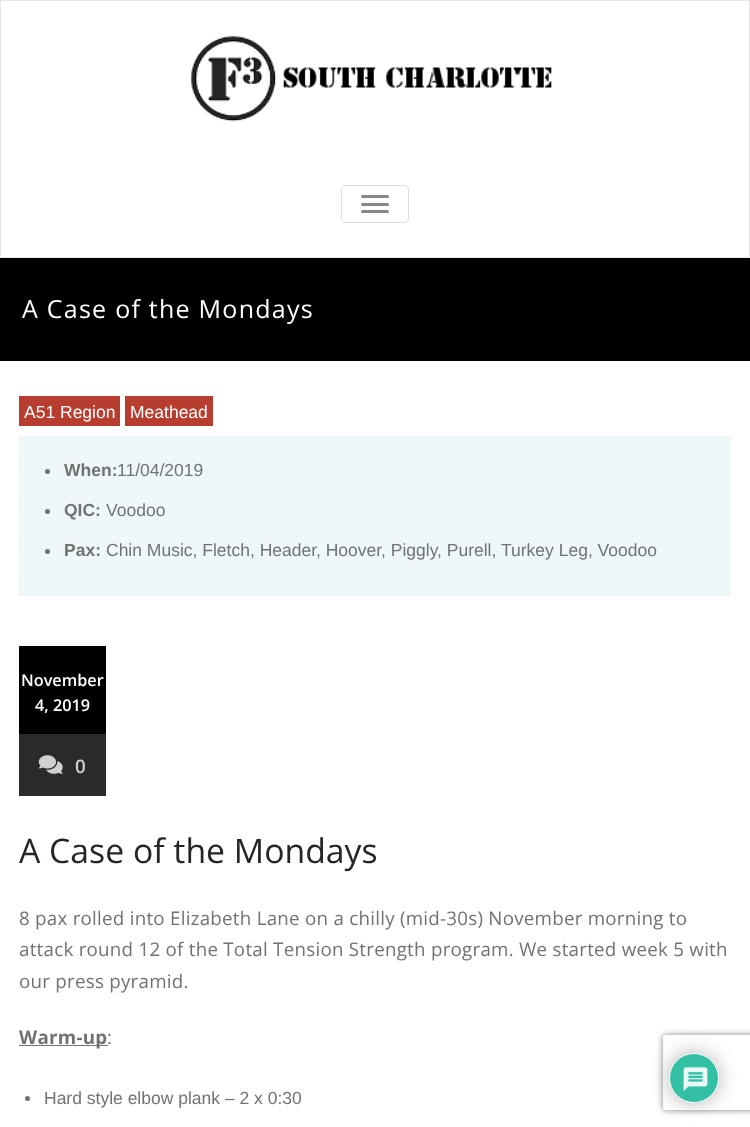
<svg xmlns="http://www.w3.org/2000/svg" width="750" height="1127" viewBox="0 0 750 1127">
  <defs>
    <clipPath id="clip1"><path d="M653 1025H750V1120H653ZM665.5 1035H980.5C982 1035 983 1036 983 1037.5V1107.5C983 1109 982 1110 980.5 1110H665.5C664 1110 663 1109 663 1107.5V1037.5C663 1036 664 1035 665.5 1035Z" clip-rule="evenodd"/></clipPath>
  </defs>
  <rect width="100%" height="100%" fill="rgb(255,255,255)"/>
  <rect x="0.5" y="0.5" width="749" height="257" fill="none" stroke="rgb(231,231,231)"/>
  <image x="191" y="36" width="361" height="86" href="pic1.png"/>
  <rect x="341.5" y="185.5" width="67" height="37" rx="4.5" fill="none" stroke="rgb(221,221,221)"/>
  <rect x="361" y="195" width="28" height="3" rx="1.5" fill="rgb(136,136,136)"/>
  <rect x="361" y="203" width="28" height="3" rx="1.5" fill="rgb(136,136,136)"/>
  <rect x="361" y="210" width="28" height="3" rx="1.5" fill="rgb(136,136,136)"/>
  <rect x="0" y="258" width="750" height="103" fill="rgb(0,0,0)"/>
  <text x="22" y="318" font-family="Open Sans" font-size="25" letter-spacing="1.25" fill="rgb(255,255,255)">A Case of the Mondays</text>
  <rect x="19" y="396" width="101" height="30" fill="rgb(183,62,46)"/>
  <text x="24" y="418" font-family="Liberation Sans" font-size="17.5" fill="rgb(255,255,255)">A51 Region</text>
  <rect x="125" y="396" width="88" height="30" fill="rgb(183,62,46)"/>
  <text x="130" y="418" font-family="Liberation Sans" font-size="17.5" fill="rgb(255,255,255)">Meathead</text>
  <rect x="19" y="436" width="712" height="160" fill="rgb(238,248,250)"/>
  <path d="M19 437H731" fill="none" stroke="rgb(238,238,238)" stroke-width="1.2" stroke-dasharray="1.25 1.25"/>
  <path d="M730.5 436V596" fill="none" stroke="rgb(238,238,238)" stroke-width="1.2" stroke-dasharray="1.25 1.25"/>
  <path d="M19 595.5H731" fill="none" stroke="rgb(238,238,238)" stroke-width="1.2" stroke-dasharray="1.25 1.25"/>
  <path d="M19.5 436V596" fill="none" stroke="rgb(238,238,238)" stroke-width="1.2" stroke-dasharray="1.25 1.25"/>
  <circle cx="47.5" cy="471.5" r="2.5" fill="rgb(114,114,114)"/>
  <text x="64" y="476" font-family="Liberation Sans" font-size="17.5" font-weight="bold" fill="rgb(114,114,114)">When:</text>
  <text x="117" y="476" font-family="Liberation Sans" font-size="17.5" fill="rgb(114,114,114)">11/04/2019</text>
  <circle cx="47.5" cy="511.5" r="2.5" fill="rgb(114,114,114)"/>
  <text x="64" y="516" font-family="Liberation Sans" font-size="17.5" font-weight="bold" fill="rgb(114,114,114)">QIC:</text>
  <text x="106" y="516" font-family="Liberation Sans" font-size="17.5" fill="rgb(114,114,114)">Voodoo</text>
  <circle cx="47.5" cy="551.5" r="2.5" fill="rgb(114,114,114)"/>
  <text x="64" y="556" font-family="Liberation Sans" font-size="17.5" font-weight="bold" fill="rgb(114,114,114)">Pax:</text>
  <g font-family="Liberation Sans" font-size="17.5" fill="rgb(114,114,114)">
    <text x="106" y="556">Chin Music, Fletch, Header</text>
    <text x="316" y="556">, Hoover</text>
    <text x="381" y="556">, Piggly</text>
    <text x="437" y="556">, Purell,</text>
    <text x="501" y="556">Turkey Leg, Voodoo</text>
  </g>
  <rect x="19" y="646" width="87" height="88" fill="rgb(0,0,0)"/>
  <g font-family="Open Sans" font-size="16.25" font-weight="600" fill="rgb(255,255,255)">
    <text x="21" y="686">November</text>
    <text x="35" y="711">4, 2019</text>
  </g>
  <rect x="19" y="734" width="87" height="62" fill="rgb(42,42,42)"/>
  <image x="38" y="755" width="25" height="19" href="pic2.png"/>
  <text x="75" y="773" font-family="Open Sans" font-size="18.75" font-weight="600" fill="rgb(208,208,208)">0</text>
  <text x="19" y="863" font-family="Open Sans" font-size="33.75" fill="rgb(36,37,38)">A Case of the Mondays</text>
  <g font-family="Open Sans" font-size="18.75" letter-spacing="0.25" fill="rgb(114,114,114)">
    <text>
      <tspan x="19" y="925">8 pax rolled into Elizabeth Lane on a chilly (mid-30s) November morning to</tspan>
      <tspan x="19" y="956">attack round 12 of the Total Tension Strength program. We started week 5 with</tspan>
      <tspan x="19" y="988">our press pyramid.</tspan>
    </text>
  </g>
  <rect x="19" y="1045" width="89" height="1" fill="rgb(114,114,114)"/>
  <text x="19" y="1044" font-family="Open Sans" font-size="18.75" font-weight="bold" letter-spacing="0.25" fill="rgb(114,114,114)">Warm-up</text>
  <text x="107" y="1044" font-family="Open Sans" font-size="18.75" letter-spacing="0.25" fill="rgb(114,114,114)">:</text>
  <circle cx="27.5" cy="1098.5" r="2.5" fill="rgb(114,114,114)"/>
  <text x="44" y="1104" font-family="Liberation Sans" font-size="17.5" fill="rgb(114,114,114)">Hard style elbow plank – 2 x 0:30</text>
  <rect x="669" y="1053" width="50" height="50" rx="25" fill="rgba(170,170,170,0.9)" filter="blur(9.5px)"/>
  <g clip-path="url(#clip1)">
    <rect x="663" y="1035" width="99" height="75" rx="2.5" fill="rgb(128,128,128)" filter="blur(3px)"/>
  </g>
  <circle cx="694" cy="1078" r="24.5" fill="rgb(52,192,164)" stroke="rgb(255,255,255)"/>
  <image x="683" y="1067" width="25" height="24" href="pic3.png"/>
</svg>
